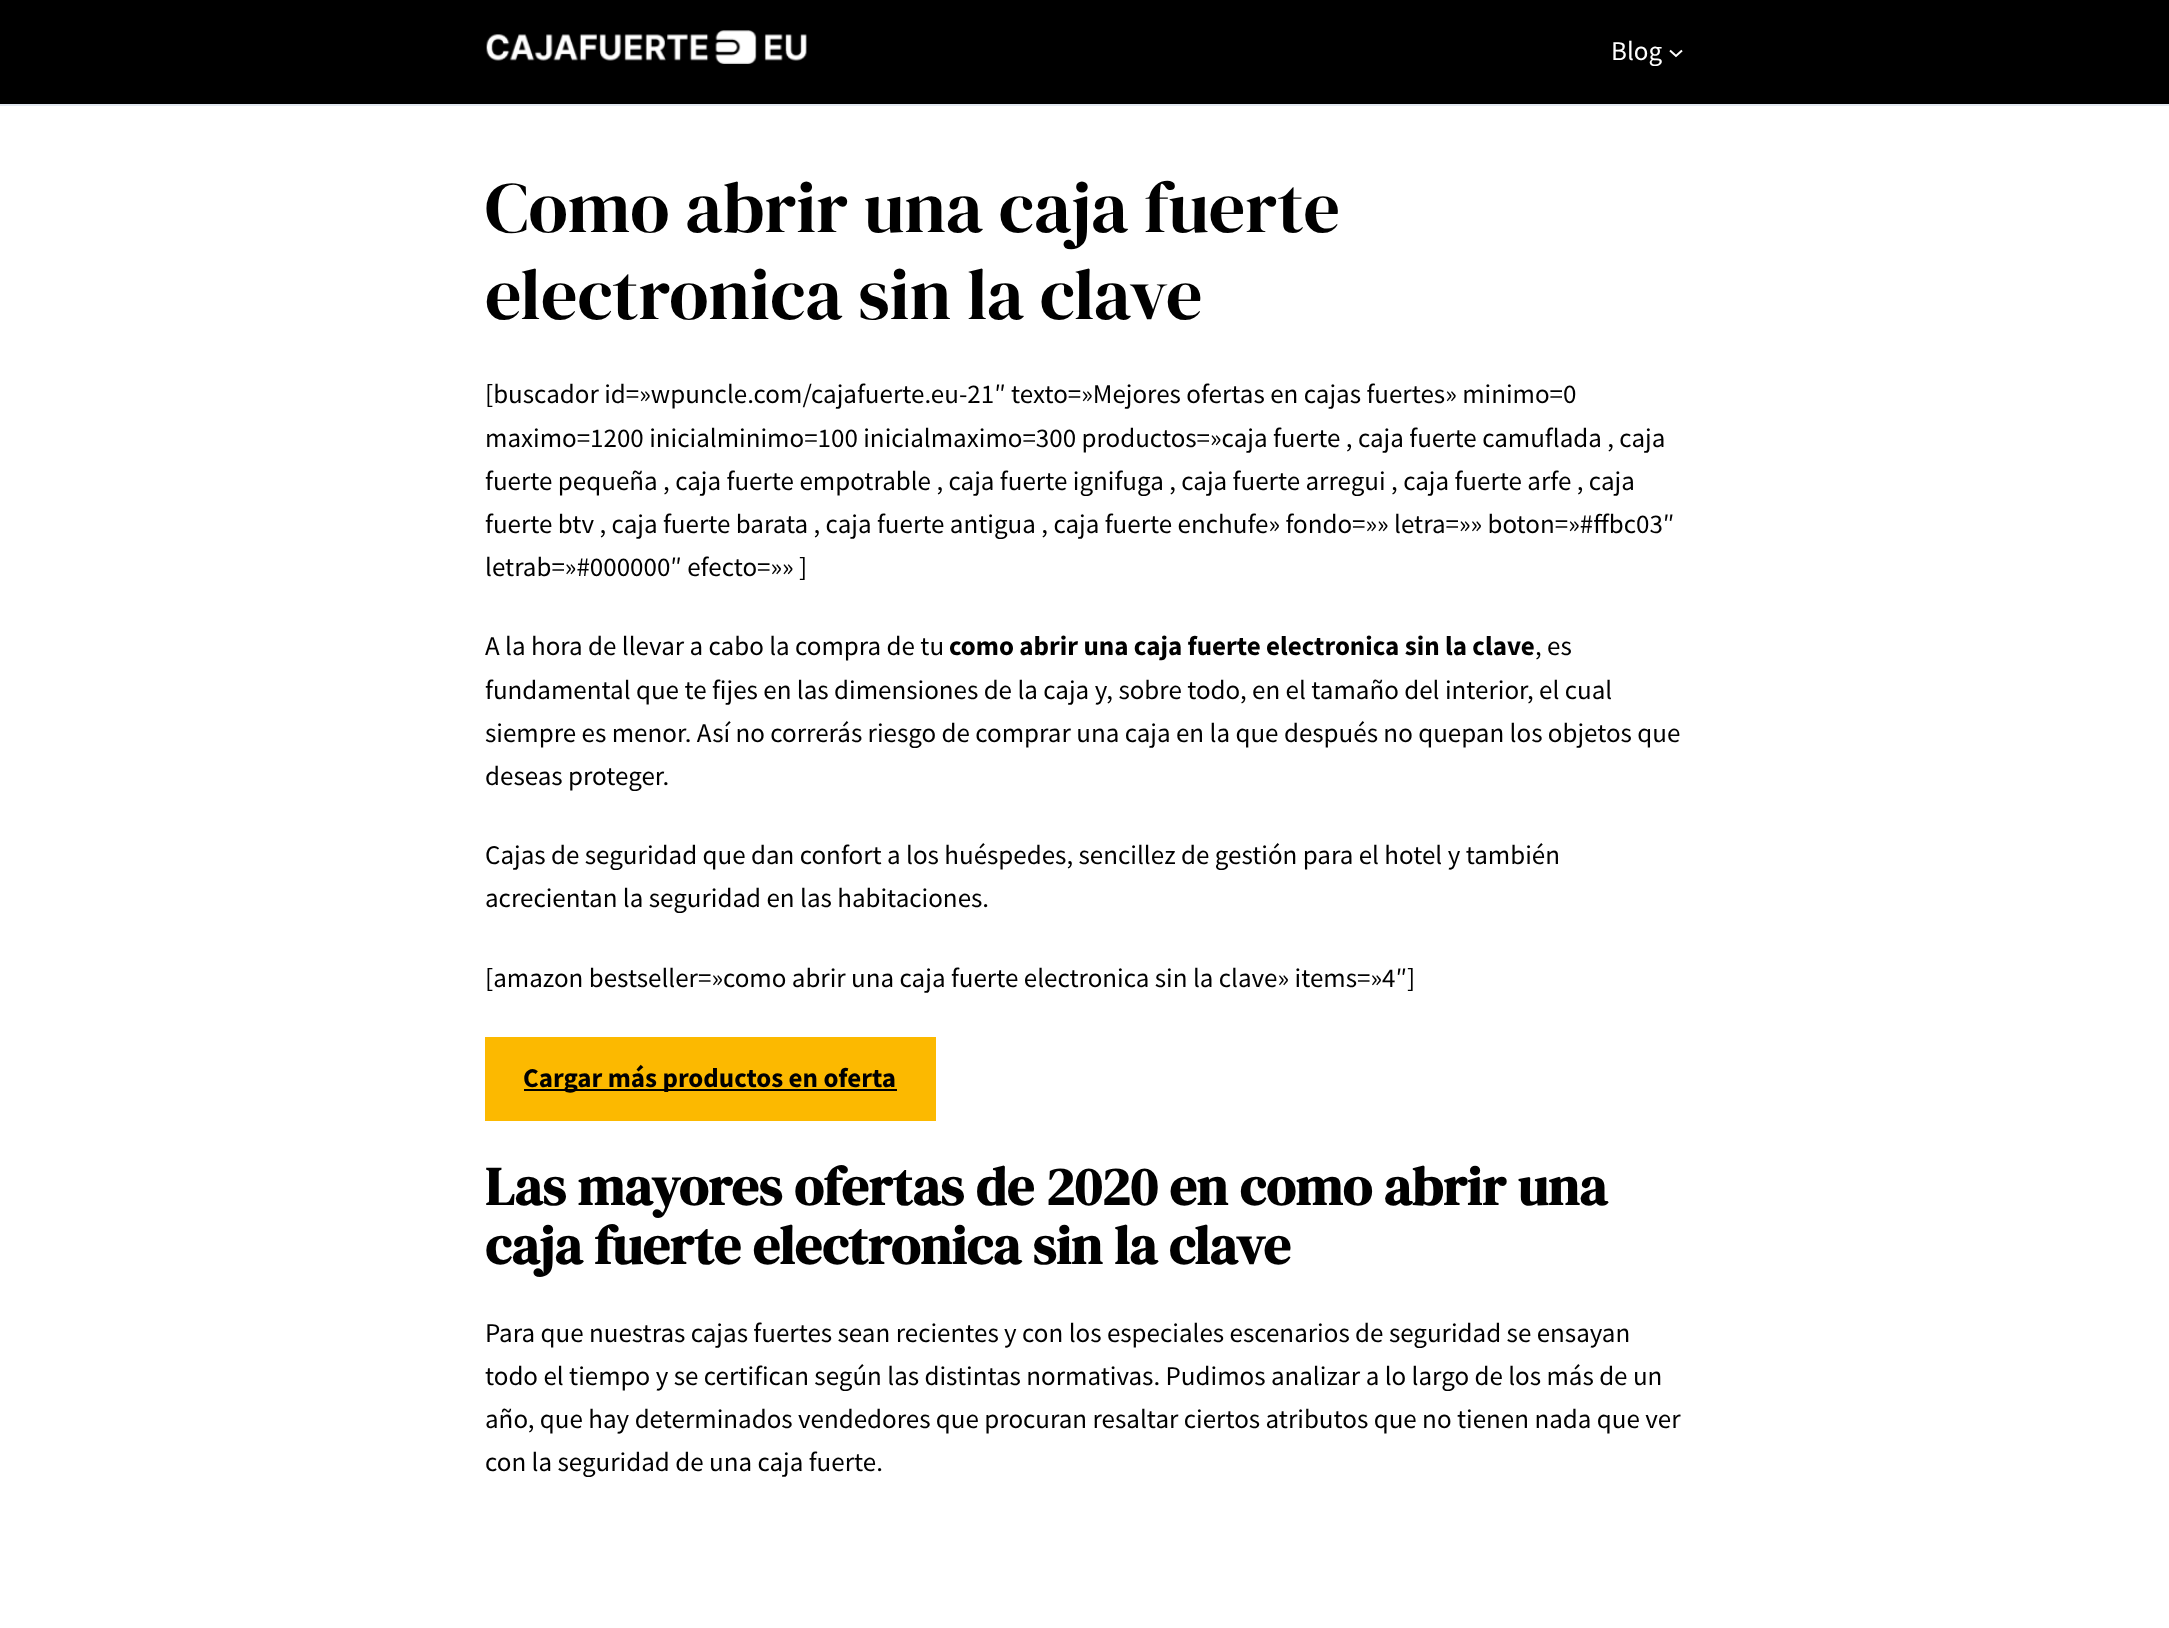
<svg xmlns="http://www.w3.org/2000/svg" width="2169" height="1628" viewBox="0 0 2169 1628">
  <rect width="100%" height="100%" fill="rgb(255,255,255)"/>
  <rect x="0" y="0" width="2169" height="104" fill="rgb(0,0,0)"/>
  <rect x="0" y="104" width="2169" height="2" fill="rgb(226,232,240)"/>
  <image x="486" y="30" width="321" height="34" href="pic1.png"/>
  <text x="1611" y="60" font-family="Source Sans Pro" font-size="27" fill="rgb(255,255,255)">Blog</text>
  <path d="M1670 50.5L1676 56L1682 50.5" fill="none" stroke="rgb(255,255,255)" stroke-width="2"/>
  <g font-family="DM Serif Display" font-size="72" fill="rgb(0,0,0)">
    <text>
      <tspan x="485" y="232">Como abrir una caja fuerte</tspan>
      <tspan x="485" y="319">electronica sin la clave</tspan>
    </text>
  </g>
  <g font-family="Source Sans Pro" font-size="27" fill="rgb(0,0,0)">
    <text>
      <tspan x="485" y="403">[buscador id=»wpuncle.com/cajafuerte.eu-21″ texto=»Mejores ofertas en cajas fuertes» minimo=0</tspan>
      <tspan x="485" y="447">maximo=1200 inicialminimo=100 inicialmaximo=300 productos=»caja fuerte , caja fuerte camuflada , caja</tspan>
      <tspan x="485" y="490">fuerte pequeña , caja fuerte empotrable , caja fuerte ignifuga , caja fuerte arregui , caja fuerte arfe , caja</tspan>
      <tspan x="485" y="533">fuerte btv , caja fuerte barata , caja fuerte antigua , caja fuerte enchufe» fondo=»» letra=»» boton=»#ffbc03″</tspan>
      <tspan x="485" y="576">letrab=»#000000″ efecto=»» ]</tspan>
    </text>
    <text x="485" y="655">A la hora de llevar a cabo la compra de tu</text>
  </g>
  <text x="949" y="655" font-family="Source Sans Pro" font-size="27" font-weight="bold" fill="rgb(0,0,0)">como abrir una caja fuerte electronica sin la clave</text>
  <g font-family="Source Sans Pro" font-size="27" fill="rgb(0,0,0)">
    <text x="1535" y="655">, es</text>
    <text>
      <tspan x="485" y="699">fundamental que te fijes en las dimensiones de la caja y, sobre todo, en el tamaño del interior, el cual</tspan>
      <tspan x="485" y="742">siempre es menor. Así no correrás riesgo de comprar una caja en la que después no quepan los objetos que</tspan>
      <tspan x="485" y="785">deseas proteger.</tspan>
    </text>
    <text>
      <tspan x="485" y="864">Cajas de seguridad que dan confort a los huéspedes, sencillez de gestión para el hotel y también</tspan>
      <tspan x="485" y="907">acrecientan la seguridad en las habitaciones.</tspan>
    </text>
    <text x="485" y="987">[amazon bestseller=»como abrir una caja fuerte electronica sin la clave» items=»4″]</text>
  </g>
  <rect x="485" y="1037" width="451" height="84" fill="rgb(252,185,0)"/>
  <rect x="524" y="1089" width="373" height="2" fill="rgb(0,0,0)"/>
  <text x="523" y="1087" font-family="Source Sans Pro" font-size="27" font-weight="bold" fill="rgb(0,0,0)">Cargar más productos en oferta</text>
  <g font-family="DM Serif Display" font-size="54" font-weight="bold" fill="rgb(0,0,0)">
    <text>
      <tspan x="485" y="1205">Las mayores ofertas de 2020 en como abrir una</tspan>
      <tspan x="485" y="1264">caja fuerte electronica sin la clave</tspan>
    </text>
  </g>
  <g font-family="Source Sans Pro" font-size="27" fill="rgb(0,0,0)">
    <text>
      <tspan x="485" y="1342">Para que nuestras cajas fuertes sean recientes y con los especiales escenarios de seguridad se ensayan</tspan>
      <tspan x="485" y="1385">todo el tiempo y se certifican según las distintas normativas. Pudimos analizar a lo largo de los más de un</tspan>
      <tspan x="485" y="1428">año, que hay determinados vendedores que procuran resaltar ciertos atributos que no tienen nada que ver</tspan>
      <tspan x="485" y="1471">con la seguridad de una caja fuerte.</tspan>
    </text>
  </g>
</svg>
